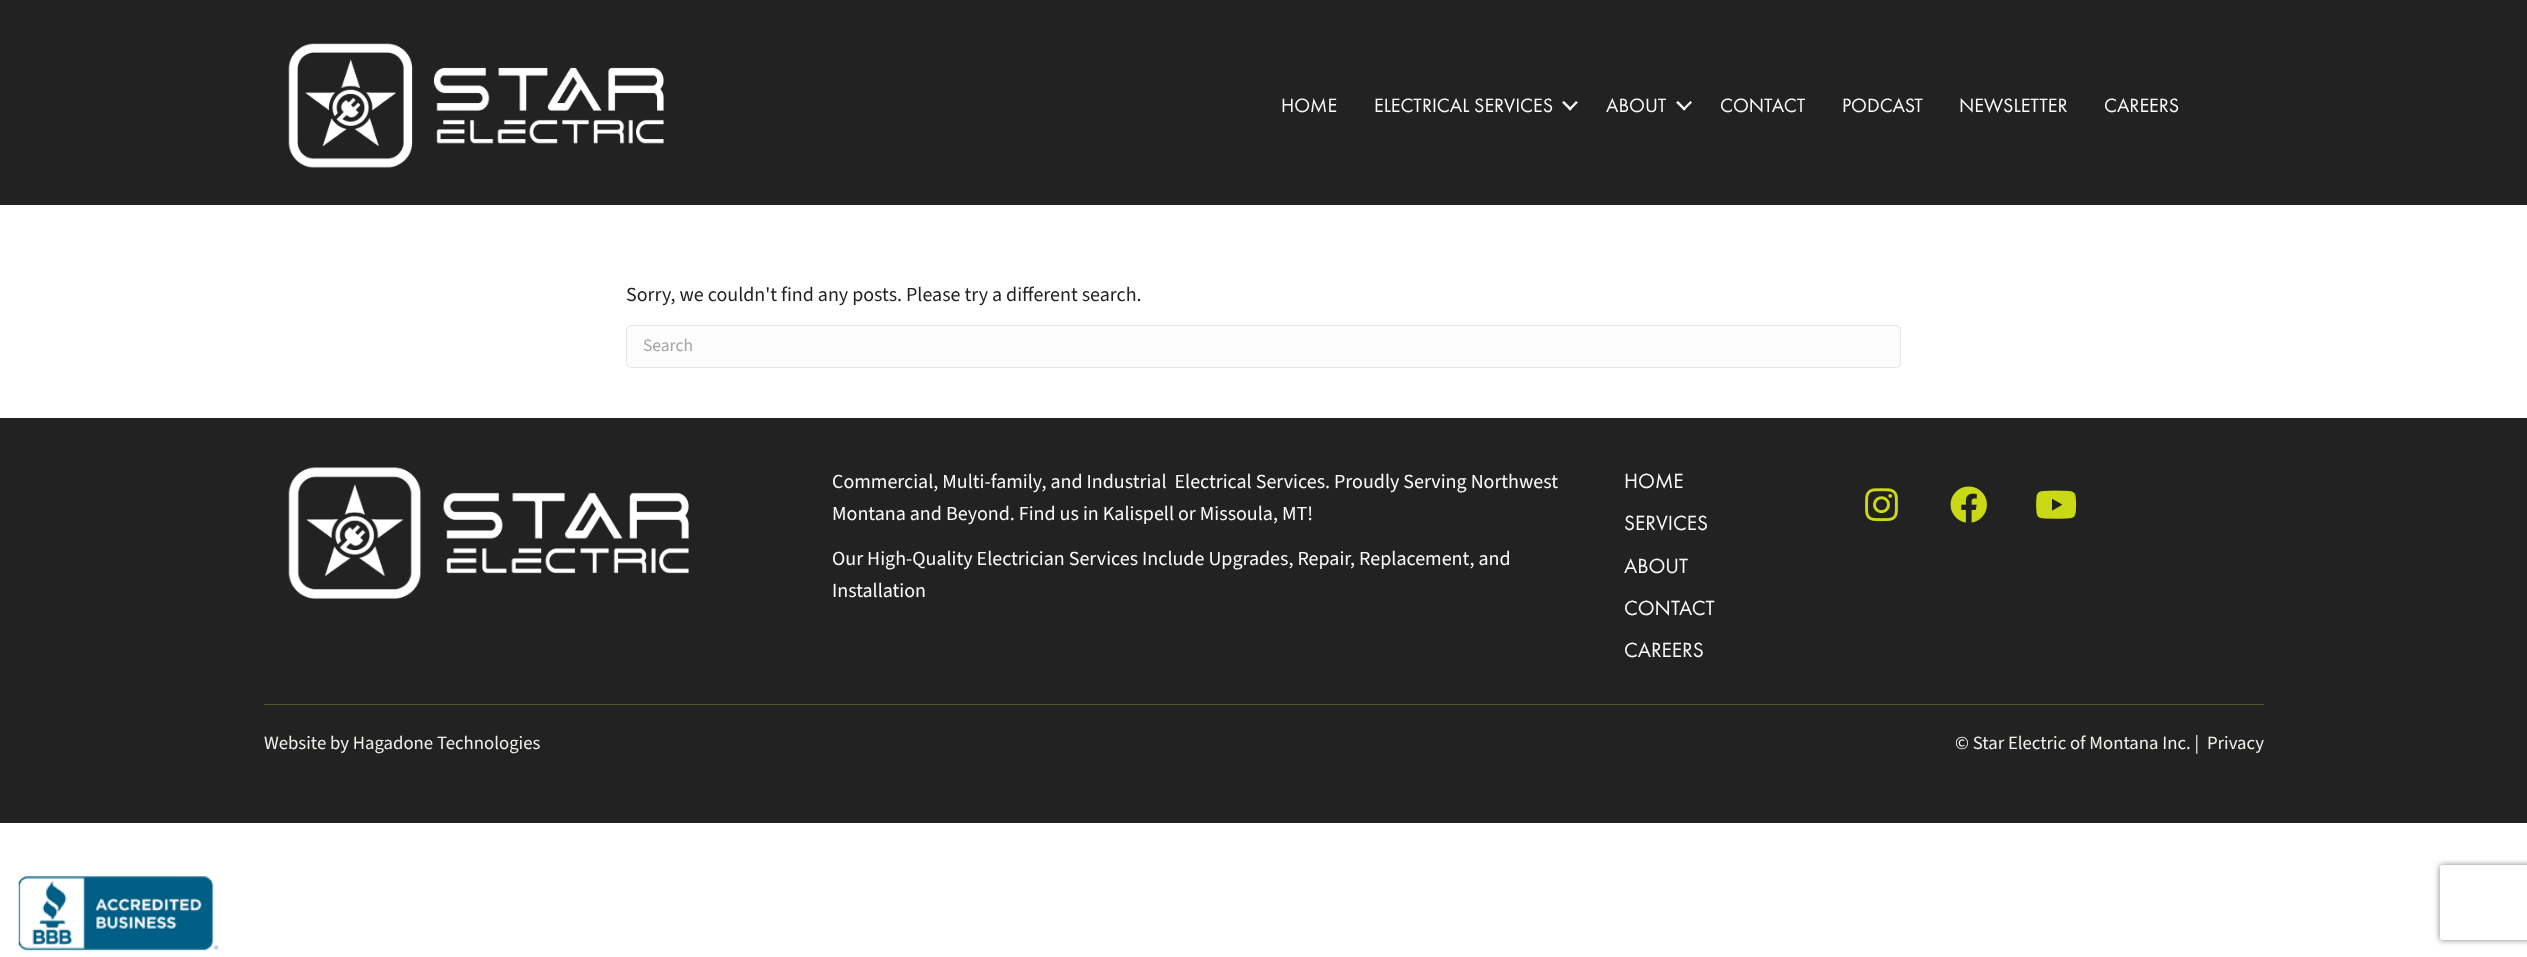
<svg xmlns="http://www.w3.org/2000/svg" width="2527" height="957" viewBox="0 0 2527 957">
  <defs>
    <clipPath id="clip1"><path d="M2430 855H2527V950H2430ZM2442.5 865H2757.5C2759 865 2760 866 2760 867.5V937.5C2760 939 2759 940 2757.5 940H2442.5C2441 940 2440 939 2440 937.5V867.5C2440 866 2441 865 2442.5 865Z" clip-rule="evenodd"/></clipPath>
  </defs>
  <rect width="100%" height="100%" fill="rgb(255,255,255)"/>
  <rect x="0" y="0" width="2527" height="205" fill="rgb(34,34,34)"/>
  <image x="288" y="43" width="376" height="125" href="pic1.png"/>
  <g font-family="Futura PT" font-size="20" fill="rgb(252,252,252)">
    <text x="1281" y="112">HOME</text>
    <text x="1374" y="112">ELECTRICAL SERVICES</text>
  </g>
  <path d="M1576 101L1578 102.5L1570 110.5L1568.5 109Z" fill="rgb(252,252,252)"/>
  <path d="M1564 101L1572 109L1570 110.5L1562 102.5Z" fill="rgb(252,252,252)"/>
  <text x="1606" y="112" font-family="Futura PT" font-size="20" fill="rgb(252,252,252)">ABOUT</text>
  <path d="M1690.5 101L1692 102.5L1684 110.5L1682.5 109Z" fill="rgb(252,252,252)"/>
  <path d="M1678 101L1686 109L1684 110.5L1676 102.5Z" fill="rgb(252,252,252)"/>
  <g font-family="Futura PT" font-size="20" fill="rgb(252,252,252)">
    <text x="1720" y="112">CONTACT</text>
    <text x="1842" y="112">PODCAST</text>
    <text x="1959" y="112">NEWSLETTER</text>
    <text x="2104" y="112">CAREERS</text>
  </g>
  <text x="626" y="301" font-family="'Source Sans 3'" font-size="20" fill="rgb(34,34,34)">Sorry, we couldn't find any posts. Please try a different search.</text>
  <rect x="626.5" y="325.5" width="1274" height="42" rx="4.5" fill="rgb(252,252,252)" stroke="rgb(230,230,230)"/>
  <text x="643" y="351" font-family="'Source Sans 3'" font-size="17.5" fill="rgb(165,165,165)">Search</text>
  <rect x="0" y="418" width="2527" height="405" fill="rgb(34,34,34)"/>
  <image x="288" y="467" width="401" height="132" href="pic2.png"/>
  <g font-family="'Source Sans 3'" font-size="20" fill="rgb(252,252,252)">
    <text xml:space="preserve"><tspan x="832" y="488">Commercial, Multi-family, and Industrial  Electrical Services. Proudly Serving Northwest</tspan><tspan x="832" y="520">Montana and Beyond. Find us in Kalispell or Missoula, MT!</tspan></text>
    <text>
      <tspan x="832" y="565">Our High-Quality Electrician Services Include Upgrades, Repair, Replacement, and</tspan>
      <tspan x="832" y="597">Installation</tspan>
    </text>
  </g>
  <g font-family="Futura PT" font-size="21.25" fill="rgb(252,252,252)">
    <text>
      <tspan x="1624" y="488">HOME</tspan>
      <tspan x="1624" y="530">SERVICES</tspan>
    </text>
    <text>
      <tspan x="1624" y="573">ABOUT</tspan>
      <tspan x="1624" y="615">CONTACT</tspan>
      <tspan x="1624" y="657">CAREERS</tspan>
    </text>
  </g>
  <image x="1865" y="488" width="33" height="34" href="pic3.png"/>
  <image x="1950" y="486" width="37" height="37" href="pic4.png"/>
  <image x="2036" y="490" width="41" height="29" href="pic5.png"/>
  <rect x="264" y="704" width="2000" height="1" fill="rgb(71,91,47)"/>
  <g font-family="'Source Sans 3'" font-size="18.75" fill="rgb(241,241,236)">
    <text x="264" y="749">Website by Hagadone Technologies</text>
    <text x="1955" y="749">© Star Electric of Montana Inc. |</text>
    <text x="2207" y="749">Privacy</text>
  </g>
  <g clip-path="url(#clip1)">
    <rect x="2440" y="865" width="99" height="75" rx="2.5" fill="rgb(128,128,128)" filter="blur(3px)"/>
  </g>
  <image x="18" y="876" width="201" height="75" href="pic6.png"/>
</svg>
